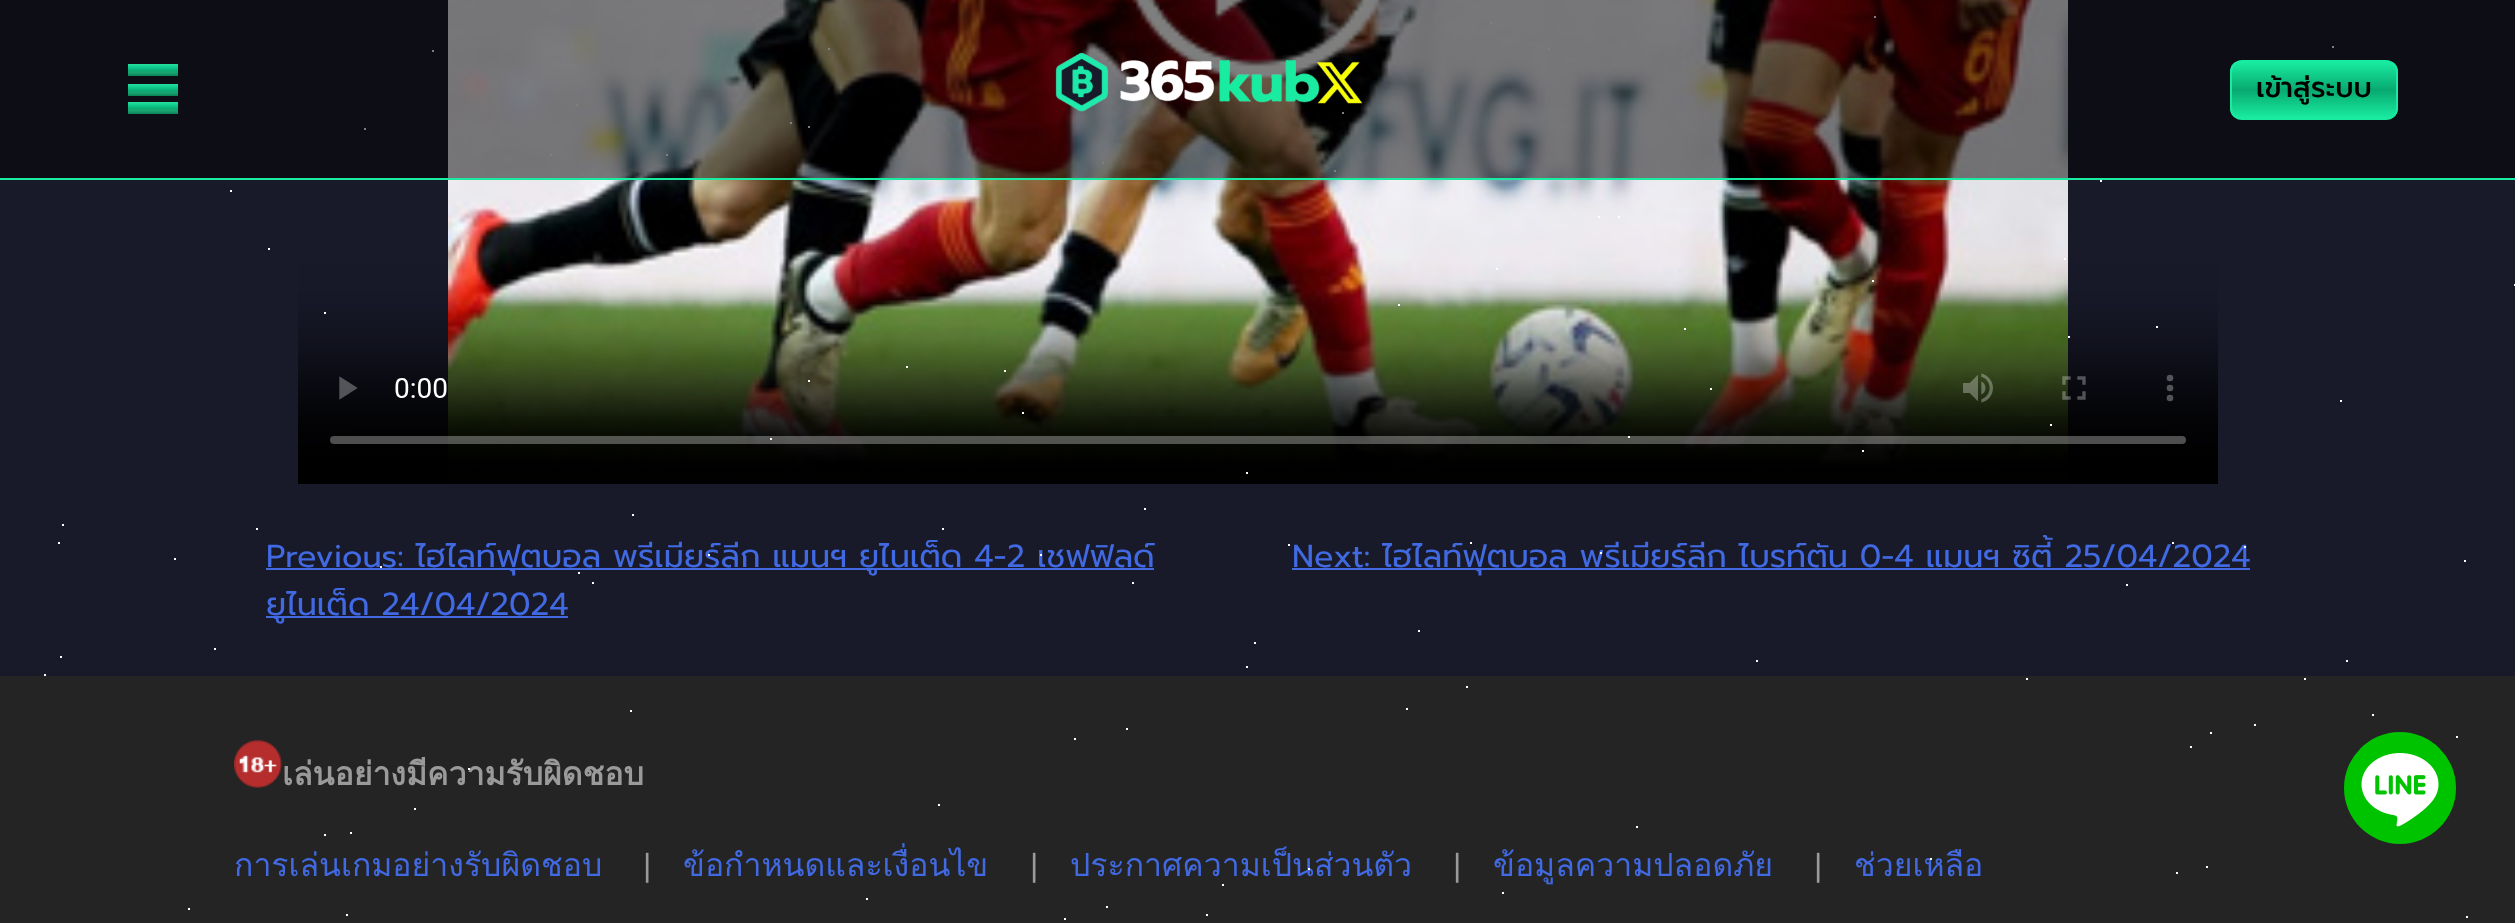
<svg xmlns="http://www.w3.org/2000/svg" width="2515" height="923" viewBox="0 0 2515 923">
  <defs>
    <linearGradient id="g1" gradientUnits="userSpaceOnUse" x1="153" y1="64" x2="153" y2="76"><stop offset="0" stop-color="rgb(37,225,158)"/><stop offset="0.35" stop-color="rgb(11,195,136)"/><stop offset="0.56" stop-color="rgb(15,169,115)"/><stop offset="0.74" stop-color="rgb(25,163,113)"/><stop offset="1" stop-color="rgb(8,129,86)"/></linearGradient>
    <linearGradient id="g2" gradientUnits="userSpaceOnUse" x1="153" y1="84" x2="153" y2="96"><stop offset="0" stop-color="rgb(37,225,158)"/><stop offset="0.35" stop-color="rgb(11,195,136)"/><stop offset="0.56" stop-color="rgb(15,169,115)"/><stop offset="0.74" stop-color="rgb(25,163,113)"/><stop offset="1" stop-color="rgb(8,129,86)"/></linearGradient>
    <linearGradient id="g3" gradientUnits="userSpaceOnUse" x1="153" y1="102" x2="153" y2="114"><stop offset="0" stop-color="rgb(37,225,158)"/><stop offset="0.35" stop-color="rgb(11,195,136)"/><stop offset="0.56" stop-color="rgb(15,169,115)"/><stop offset="0.74" stop-color="rgb(25,163,113)"/><stop offset="1" stop-color="rgb(8,129,86)"/></linearGradient>
    <clipPath id="clip1"><rect x="2230" y="60" width="168" height="60" rx="12"/></clipPath>
    <linearGradient id="g4" gradientUnits="userSpaceOnUse" x1="2314" y1="62" x2="2314" y2="118"><stop offset="0" stop-color="rgb(25,236,161)"/><stop offset="0.5" stop-color="rgb(8,169,112)"/><stop offset="1" stop-color="rgb(25,236,161)"/></linearGradient>
  </defs>
  <rect width="100%" height="100%" fill="rgb(24,26,42)"/>
  <rect x="0" y="676" width="2515" height="247" fill="rgb(36,36,36)"/>
  <rect x="866" y="898" width="2" height="2" fill="rgb(255,255,255)"/>
  <rect x="1756" y="660" width="2" height="2" fill="rgb(255,255,255)"/>
  <image x="298" y="0" width="1920" height="484" href="pic2.png"/>
  <rect x="2100" y="180" width="2" height="2" fill="rgb(255,255,255)"/>
  <rect x="1466" y="686" width="2" height="2" fill="rgb(255,255,255)"/>
  <text x="1854" y="876" font-family="Loma" font-size="32" fill="rgb(65,105,225)">ช่วยเหลือ</text>
  <rect x="1930" y="858" width="2" height="2" fill="rgb(255,255,255)"/>
  <rect x="1636" y="826" width="2" height="2" fill="rgb(255,255,255)"/>
  <rect x="1342" y="112" width="2" height="2" fill="rgb(255,255,255)"/>
  <rect x="2340" y="400" width="2" height="2" fill="rgb(255,255,255)"/>
  <rect x="550" y="154" width="2" height="2" fill="rgb(255,255,255)"/>
  <rect x="1398" y="304" width="2" height="2" fill="rgb(255,255,255)"/>
  <rect x="268" y="248" width="2" height="2" fill="rgb(255,255,255)"/>
  <rect x="1106" y="906" width="2" height="2" fill="rgb(255,255,255)"/>
  <rect x="1334" y="170" width="2" height="2" fill="rgb(255,255,255)"/>
  <rect x="1288" y="544" width="2" height="2" fill="rgb(255,255,255)"/>
  <rect x="1862" y="450" width="2" height="2" fill="rgb(255,255,255)"/>
  <rect x="1292" y="568" width="958" height="2" fill="rgb(65,105,225)"/>
  <text x="1292" y="567" font-family="Prompt" font-size="32" fill="rgb(65,105,225)">Next: ไฮไลท์ฟุตบอล พรีเมียร์ลีก ไบรท์ตัน 0-4 แมนฯ ซิตี้ 25/04/2024</text>
  <rect x="2172" y="542" width="2" height="2" fill="rgb(255,255,255)"/>
  <rect x="630" y="710" width="2" height="2" fill="rgb(255,255,255)"/>
  <rect x="1618" y="216" width="2" height="2" fill="rgb(255,255,255)"/>
  <rect x="2466" y="916" width="2" height="2" fill="rgb(255,255,255)"/>
  <rect x="1022" y="412" width="2" height="2" fill="rgb(255,255,255)"/>
  <rect x="808" y="126" width="2" height="2" fill="rgb(255,255,255)"/>
  <rect x="44" y="674" width="2" height="2" fill="rgb(255,255,255)"/>
  <rect x="214" y="648" width="2" height="2" fill="rgb(255,255,255)"/>
  <rect x="1126" y="728" width="2" height="2" fill="rgb(255,255,255)"/>
  <rect x="350" y="832" width="2" height="2" fill="rgb(255,255,255)"/>
  <rect x="1144" y="508" width="2" height="2" fill="rgb(255,255,255)"/>
  <rect x="1710" y="388" width="2" height="2" fill="rgb(255,255,255)"/>
  <rect x="2190" y="746" width="2" height="2" fill="rgb(255,255,255)"/>
  <rect x="1246" y="472" width="2" height="2" fill="rgb(255,255,255)"/>
  <rect x="2244" y="546" width="2" height="2" fill="rgb(255,255,255)"/>
  <rect x="2068" y="336" width="2" height="2" fill="rgb(255,255,255)"/>
  <rect x="576" y="104" width="2" height="2" fill="rgb(255,255,255)"/>
  <rect x="1872" y="280" width="2" height="2" fill="rgb(255,255,255)"/>
  <rect x="346" y="914" width="2" height="2" fill="rgb(255,255,255)"/>
  <rect x="1004" y="370" width="2" height="2" fill="rgb(255,255,255)"/>
  <rect x="324" y="834" width="2" height="2" fill="rgb(255,255,255)"/>
  <rect x="60" y="656" width="2" height="2" fill="rgb(255,255,255)"/>
  <rect x="324" y="312" width="2" height="2" fill="rgb(255,255,255)"/>
  <rect x="62" y="524" width="2" height="2" fill="rgb(255,255,255)"/>
  <rect x="1206" y="914" width="2" height="2" fill="rgb(255,255,255)"/>
  <rect x="414" y="808" width="2" height="2" fill="rgb(255,255,255)"/>
  <rect x="2126" y="584" width="2" height="2" fill="rgb(255,255,255)"/>
  <rect x="1074" y="738" width="2" height="2" fill="rgb(255,255,255)"/>
  <rect x="790" y="122" width="2" height="2" fill="rgb(255,255,255)"/>
  <rect x="364" y="128" width="2" height="2" fill="rgb(255,255,255)"/>
  <rect x="174" y="558" width="2" height="2" fill="rgb(255,255,255)"/>
  <rect x="938" y="804" width="2" height="2" fill="rgb(255,255,255)"/>
  <text x="1070" y="876" font-family="Loma" font-size="32" fill="rgb(65,105,225)">ประกาศความเป็นส่วนตัว</text>
  <rect x="1308" y="868" width="2" height="2" fill="rgb(255,255,255)"/>
  <rect x="592" y="582" width="2" height="2" fill="rgb(255,255,255)"/>
  <rect x="2206" y="866" width="2" height="2" fill="rgb(255,255,255)"/>
  <rect x="1246" y="666" width="2" height="2" fill="rgb(255,255,255)"/>
  <rect x="266" y="568" width="888" height="2" fill="rgb(65,105,225)"/>
  <text x="266" y="567" font-family="Prompt" font-size="32" fill="rgb(65,105,225)">Previous: ไฮไลท์ฟุตบอล พรีเมียร์ลีก แมนฯ ยูไนเต็ด 4-2 เชฟฟิลด์</text>
  <rect x="380" y="566" width="2" height="2" fill="rgb(255,255,255)"/>
  <rect x="1470" y="542" width="2" height="2" fill="rgb(255,255,255)"/>
  <rect x="2456" y="736" width="2" height="2" fill="rgb(255,255,255)"/>
  <rect x="58" y="542" width="2" height="2" fill="rgb(255,255,255)"/>
  <rect x="1548" y="48" width="2" height="2" fill="rgb(255,255,255)"/>
  <rect x="1684" y="328" width="2" height="2" fill="rgb(255,255,255)"/>
  <rect x="230" y="190" width="2" height="2" fill="rgb(255,255,255)"/>
  <rect x="1600" y="552" width="2" height="2" fill="rgb(255,255,255)"/>
  <rect x="2026" y="678" width="2" height="2" fill="rgb(255,255,255)"/>
  <rect x="1040" y="554" width="2" height="2" fill="rgb(255,255,255)"/>
  <rect x="256" y="528" width="2" height="2" fill="rgb(255,255,255)"/>
  <rect x="770" y="438" width="2" height="2" fill="rgb(255,255,255)"/>
  <rect x="2304" y="678" width="2" height="2" fill="rgb(255,255,255)"/>
  <rect x="1132" y="582" width="2" height="2" fill="rgb(255,255,255)"/>
  <rect x="808" y="380" width="2" height="2" fill="rgb(255,255,255)"/>
  <rect x="632" y="514" width="2" height="2" fill="rgb(255,255,255)"/>
  <rect x="1418" y="630" width="2" height="2" fill="rgb(255,255,255)"/>
  <rect x="1490" y="22" width="2" height="2" fill="rgb(255,255,255)"/>
  <rect x="578" y="572" width="2" height="2" fill="rgb(255,255,255)"/>
  <rect x="2064" y="258" width="2" height="2" fill="rgb(255,255,255)"/>
  <rect x="188" y="908" width="2" height="2" fill="rgb(255,255,255)"/>
  <rect x="1254" y="642" width="2" height="2" fill="rgb(255,255,255)"/>
  <rect x="2156" y="326" width="2" height="2" fill="rgb(255,255,255)"/>
  <rect x="2050" y="424" width="2" height="2" fill="rgb(255,255,255)"/>
  <rect x="1502" y="892" width="2" height="2" fill="rgb(255,255,255)"/>
  <rect x="942" y="528" width="2" height="2" fill="rgb(255,255,255)"/>
  <rect x="2372" y="714" width="2" height="2" fill="rgb(255,255,255)"/>
  <rect x="1102" y="162" width="2" height="2" fill="rgb(255,255,255)"/>
  <rect x="2332" y="46" width="2" height="2" fill="rgb(255,255,255)"/>
  <rect x="2176" y="872" width="2" height="2" fill="rgb(255,255,255)"/>
  <rect x="432" y="50" width="2" height="2" fill="rgb(255,255,255)"/>
  <rect x="1874" y="16" width="2" height="2" fill="rgb(255,255,255)"/>
  <rect x="828" y="48" width="2" height="2" fill="rgb(255,255,255)"/>
  <rect x="2514" y="284" width="1" height="2" fill="rgb(255,255,255)"/>
  <rect x="906" y="366" width="2" height="2" fill="rgb(255,255,255)"/>
  <rect x="2346" y="660" width="2" height="2" fill="rgb(255,255,255)"/>
  <rect x="1406" y="708" width="2" height="2" fill="rgb(255,255,255)"/>
  <rect x="2210" y="732" width="2" height="2" fill="rgb(255,255,255)"/>
  <text x="282" y="785" font-family="Loma" font-size="32" font-weight="bold" fill="rgb(154,154,154)">เล่นอย่างมีความรับผิดชอบ</text>
  <rect x="468" y="768" width="2" height="2" fill="rgb(255,255,255)"/>
  <rect x="1064" y="918" width="2" height="2" fill="rgb(255,255,255)"/>
  <rect x="2254" y="724" width="2" height="2" fill="rgb(255,255,255)"/>
  <rect x="666" y="154" width="2" height="2" fill="rgb(255,255,255)"/>
  <rect x="2464" y="560" width="2" height="2" fill="rgb(255,255,255)"/>
  <rect x="1598" y="216" width="2" height="2" fill="rgb(255,255,255)"/>
  <rect x="1222" y="884" width="2" height="2" fill="rgb(255,255,255)"/>
  <rect x="1496" y="268" width="2" height="2" fill="rgb(255,255,255)"/>
  <rect x="708" y="554" width="2" height="2" fill="rgb(255,255,255)"/>
  <rect x="1628" y="436" width="2" height="2" fill="rgb(255,255,255)"/>
  <rect x="0" y="0" width="2515" height="178" fill="rgba(0,0,0,0.5)"/>
  <rect x="0" y="178" width="2515" height="2" fill="rgb(25,236,161)"/>
  <rect x="128" y="64" width="50" height="12" fill="url(#g1)"/>
  <rect x="128" y="84" width="50" height="12" fill="url(#g2)"/>
  <rect x="128" y="102" width="50" height="12" fill="url(#g3)"/>
  <image x="1055" y="52" width="308" height="60" href="pic1.png"/>
  <g clip-path="url(#clip1)">
    <rect x="2230" y="62" width="168" height="56" fill="url(#g4)"/>
  </g>
  <rect x="2231" y="61" width="166" height="58" rx="11" fill="none" stroke="rgb(25,236,161)" stroke-width="2"/>
  <text x="2256" y="97" font-family="Prompt" font-size="28" font-weight="500" fill="rgb(0,0,0)">เข้าสู่ระบบ</text>
  <rect x="266" y="616" width="302" height="2" fill="rgb(65,105,225)"/>
  <text x="266" y="615" font-family="Prompt" font-size="32" fill="rgb(65,105,225)">ยูไนเต็ด 24/04/2024</text>
  <image x="234" y="740" width="48" height="48" href="pic3.png"/>
  <text x="234" y="876" font-family="Loma" font-size="32" fill="rgb(65,105,225)">การเล่นเกมอย่างรับผิดชอบ</text>
  <text x="643" y="876" font-family="Liberation Sans" font-size="32" fill="rgb(154,154,154)">|</text>
  <text x="683" y="876" font-family="Loma" font-size="32" fill="rgb(65,105,225)">ข้อกำหนดและเงื่อนไข</text>
  <g font-family="Liberation Sans" font-size="32" fill="rgb(154,154,154)">
    <text x="1030" y="876">|</text>
    <text x="1453" y="876">|</text>
  </g>
  <text x="1493" y="876" font-family="Loma" font-size="32" fill="rgb(65,105,225)">ข้อมูลความปลอดภัย</text>
  <text x="1814" y="876" font-family="Liberation Sans" font-size="32" fill="rgb(154,154,154)">|</text>
  <circle cx="2400" cy="788" r="56" fill="rgb(0,195,0)"/>
  <image x="2361" y="753" width="78" height="74" href="pic4.png"/>
</svg>
